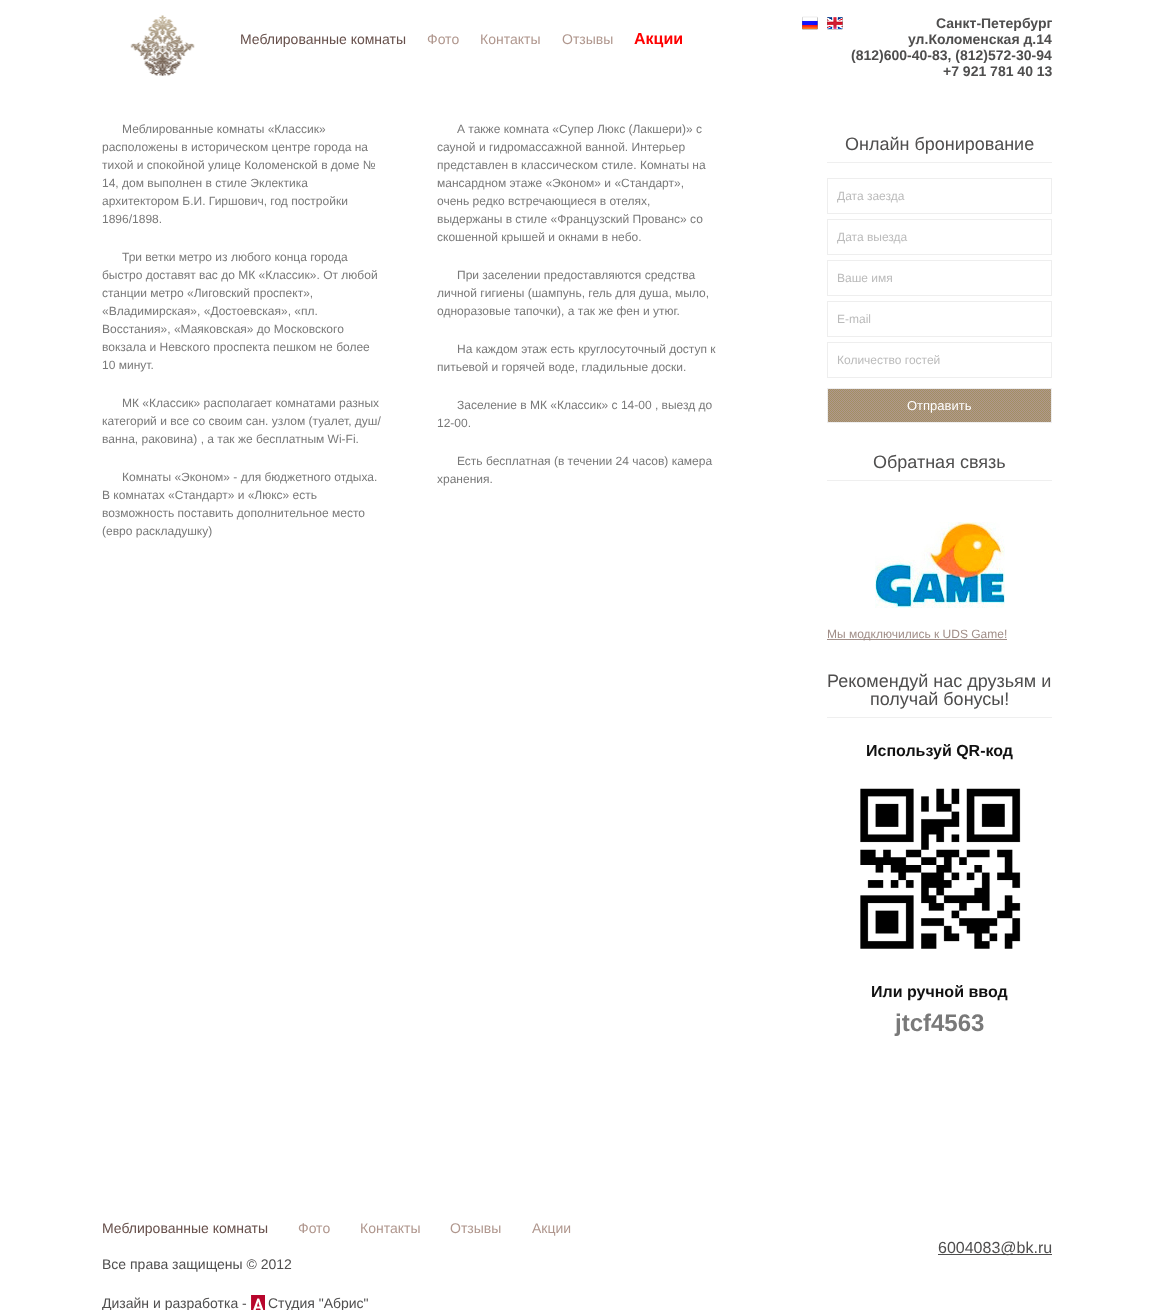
<svg xmlns="http://www.w3.org/2000/svg" width="1154" height="1310" viewBox="0 0 1154 1310">
  <rect width="100%" height="100%" fill="rgb(255,255,255)"/>
  <image x="130" y="15" width="65" height="61" href="pic1.png"/>
  <text x="240" y="44" font-family="Liberation Sans" font-size="14" fill="rgb(102,79,74)">Меблированные комнаты</text>
  <g font-family="Liberation Sans" font-size="14" fill="rgb(176,151,142)">
    <text x="427" y="44">Фото</text>
    <text x="480" y="44">Контакты</text>
    <text x="562" y="44">Отзывы</text>
  </g>
  <text x="634" y="44" font-family="Liberation Sans" font-size="16" font-weight="bold" fill="rgb(255,0,0)">Акции</text>
  <image x="802" y="16" width="16" height="14" href="pic2.png"/>
  <image x="827" y="17" width="16" height="13" href="pic3.png"/>
  <g font-family="Liberation Sans" font-size="14" font-weight="bold" fill="rgb(79,78,78)">
    <text x="936" y="28">Санкт-Петербург</text>
    <text x="908" y="44">ул.Коломенская д.14</text>
    <text x="851" y="60">(812)600-40-83, (812)572-30-94</text>
    <text x="943" y="76">+7 921 781 40 13</text>
  </g>
  <g font-family="Liberation Sans" font-size="12" fill="rgb(121,121,121)">
    <text x="122" y="133">Меблированные комнаты «Классик»</text>
    <text>
      <tspan x="102" y="151">расположены в историческом центре города на</tspan>
      <tspan x="102" y="169">тихой и спокойной улице Коломенской в доме №</tspan>
      <tspan x="102" y="187">14, дом выполнен в стиле Эклектика</tspan>
      <tspan x="102" y="205">архитектором Б.И. Гиршович, год постройки</tspan>
      <tspan x="102" y="223">1896/1898.</tspan>
    </text>
    <text x="122" y="261">Три ветки метро из любого конца города</text>
    <text>
      <tspan x="102" y="279">быстро доставят вас до МК «Классик». От любой</tspan>
      <tspan x="102" y="297">станции метро «Лиговский проспект»,</tspan>
      <tspan x="102" y="315">«Владимирская», «Достоевская», «пл.</tspan>
      <tspan x="102" y="333">Восстания», «Маяковская» до Московского</tspan>
      <tspan x="102" y="351">вокзала и Невского проспекта пешком не более</tspan>
      <tspan x="102" y="369">10 минут.</tspan>
    </text>
    <text x="122" y="407">МК «Классик» располагает комнатами разных</text>
    <text>
      <tspan x="102" y="425">категорий и все со своим сан. узлом (туалет, душ/</tspan>
      <tspan x="102" y="443">ванна, раковина) , а так же бесплатным Wi-Fi.</tspan>
    </text>
    <text x="122" y="481">Комнаты «Эконом» - для бюджетного отдыха.</text>
    <text>
      <tspan x="102" y="499">В комнатах «Стандарт» и «Люкс» есть</tspan>
      <tspan x="102" y="517">возможность поставить дополнительное место</tspan>
      <tspan x="102" y="535">(евро раскладушку)</tspan>
    </text>
    <text x="457" y="133">А также комната «Супер Люкс (Лакшери)» с</text>
    <text>
      <tspan x="437" y="151">сауной и гидромассажной ванной. Интерьер</tspan>
      <tspan x="437" y="169">представлен в классическом стиле. Комнаты на</tspan>
      <tspan x="437" y="187">мансардном этаже «Эконом» и «Стандарт»,</tspan>
      <tspan x="437" y="205">очень редко встречающиеся в отелях,</tspan>
      <tspan x="437" y="223">выдержаны в стиле «Французский Прованс» со</tspan>
      <tspan x="437" y="241">скошенной крышей и окнами в небо.</tspan>
    </text>
    <text x="457" y="279">При заселении предоставляются средства</text>
    <text>
      <tspan x="437" y="297">личной гигиены (шампунь, гель для душа, мыло,</tspan>
      <tspan x="437" y="315">одноразовые тапочки), а так же фен и утюг.</tspan>
    </text>
    <text x="457" y="353">На каждом этаж есть круглосуточный доступ к</text>
    <text x="437" y="371">питьевой и горячей воде, гладильные доски.</text>
    <text x="457" y="409">Заселение в МК «Классик» с 14-00 , выезд до</text>
    <text x="437" y="427">12-00.</text>
    <text x="457" y="465">Есть бесплатная (в течении 24 часов) камера</text>
    <text x="437" y="483">хранения.</text>
  </g>
  <rect x="827" y="162" width="225" height="1" fill="rgb(239,239,239)"/>
  <text x="845" y="150" font-family="Liberation Sans" font-size="18" fill="rgb(79,78,78)">Онлайн бронирование</text>
  <rect x="827.5" y="178.5" width="224" height="35" fill="none" stroke="rgb(238,238,238)"/>
  <text x="837" y="200" font-family="Liberation Sans" font-size="12" fill="rgb(187,187,187)">Дата заезда</text>
  <rect x="827.5" y="219.5" width="224" height="35" fill="none" stroke="rgb(238,238,238)"/>
  <text x="837" y="241" font-family="Liberation Sans" font-size="12" fill="rgb(187,187,187)">Дата выезда</text>
  <rect x="827.5" y="260.5" width="224" height="35" fill="none" stroke="rgb(238,238,238)"/>
  <text x="837" y="282" font-family="Liberation Sans" font-size="12" fill="rgb(187,187,187)">Ваше имя</text>
  <rect x="827.5" y="301.5" width="224" height="35" fill="none" stroke="rgb(238,238,238)"/>
  <text x="837" y="323" font-family="Liberation Sans" font-size="12" fill="rgb(187,187,187)">E-mail</text>
  <rect x="827.5" y="342.5" width="224" height="35" fill="none" stroke="rgb(238,238,238)"/>
  <text x="837" y="364" font-family="Liberation Sans" font-size="12" fill="rgb(187,187,187)">Количество гостей</text>
  <image x="828" y="389" width="223" height="33" href="pic4.png"/>
  <rect x="827.5" y="388.5" width="224" height="34" fill="none" stroke="rgb(238,238,238)"/>
  <text x="907" y="410" font-family="Liberation Sans" font-size="13" fill="rgb(255,255,255)">Отправить</text>
  <rect x="827" y="480" width="225" height="1" fill="rgb(239,239,239)"/>
  <text x="873" y="468" font-family="Liberation Sans" font-size="18" fill="rgb(79,78,78)">Обратная связь</text>
  <image x="875" y="522" width="130" height="86" href="pic5.png"/>
  <rect x="827" y="639" width="180" height="1" fill="rgb(161,142,136)"/>
  <text x="827" y="638" font-family="Liberation Sans" font-size="12" fill="rgb(161,142,136)">Мы модключились к UDS Game!</text>
  <rect x="827" y="717" width="225" height="1" fill="rgb(239,239,239)"/>
  <g font-family="Liberation Sans" font-size="18" fill="rgb(79,78,78)">
    <text x="827" y="687">Рекомендуй нас друзьям и</text>
    <text x="870" y="705">получай бонусы!</text>
  </g>
  <text x="866" y="756" font-family="Liberation Sans" font-size="16" font-weight="bold" fill="rgb(17,17,17)">Используй QR-код</text>
  <image x="860" y="788" width="161" height="161" href="pic6.png"/>
  <text x="871" y="997" font-family="Liberation Sans" font-size="16" font-weight="bold" fill="rgb(17,17,17)">Или ручной ввод</text>
  <text x="895" y="1031" font-family="Liberation Sans" font-size="24" font-weight="bold" fill="rgb(121,121,121)">jtcf4563</text>
  <text x="102" y="1233" font-family="Liberation Sans" font-size="14" fill="rgb(102,79,74)">Меблированные комнаты</text>
  <g font-family="Liberation Sans" font-size="14" fill="rgb(176,151,142)">
    <text x="298" y="1233">Фото</text>
    <text x="360" y="1233">Контакты</text>
    <text x="450" y="1233">Отзывы</text>
    <text x="532" y="1233">Акции</text>
  </g>
  <g font-family="Liberation Sans" font-size="14" fill="rgb(79,78,78)">
    <text x="102" y="1269">Все права защищены © 2012</text>
    <text x="102" y="1308">Дизайн и разработка -</text>
  </g>
  <image x="251" y="1295" width="14" height="15" href="pic7.png"/>
  <text x="268" y="1308" font-family="Liberation Sans" font-size="14" fill="rgb(79,78,78)">Студия "Абрис"</text>
  <rect x="938" y="1254" width="114" height="1" fill="rgb(79,78,78)"/>
  <text x="938" y="1253" font-family="Liberation Sans" font-size="16" fill="rgb(79,78,78)">6004083@bk.ru</text>
</svg>
